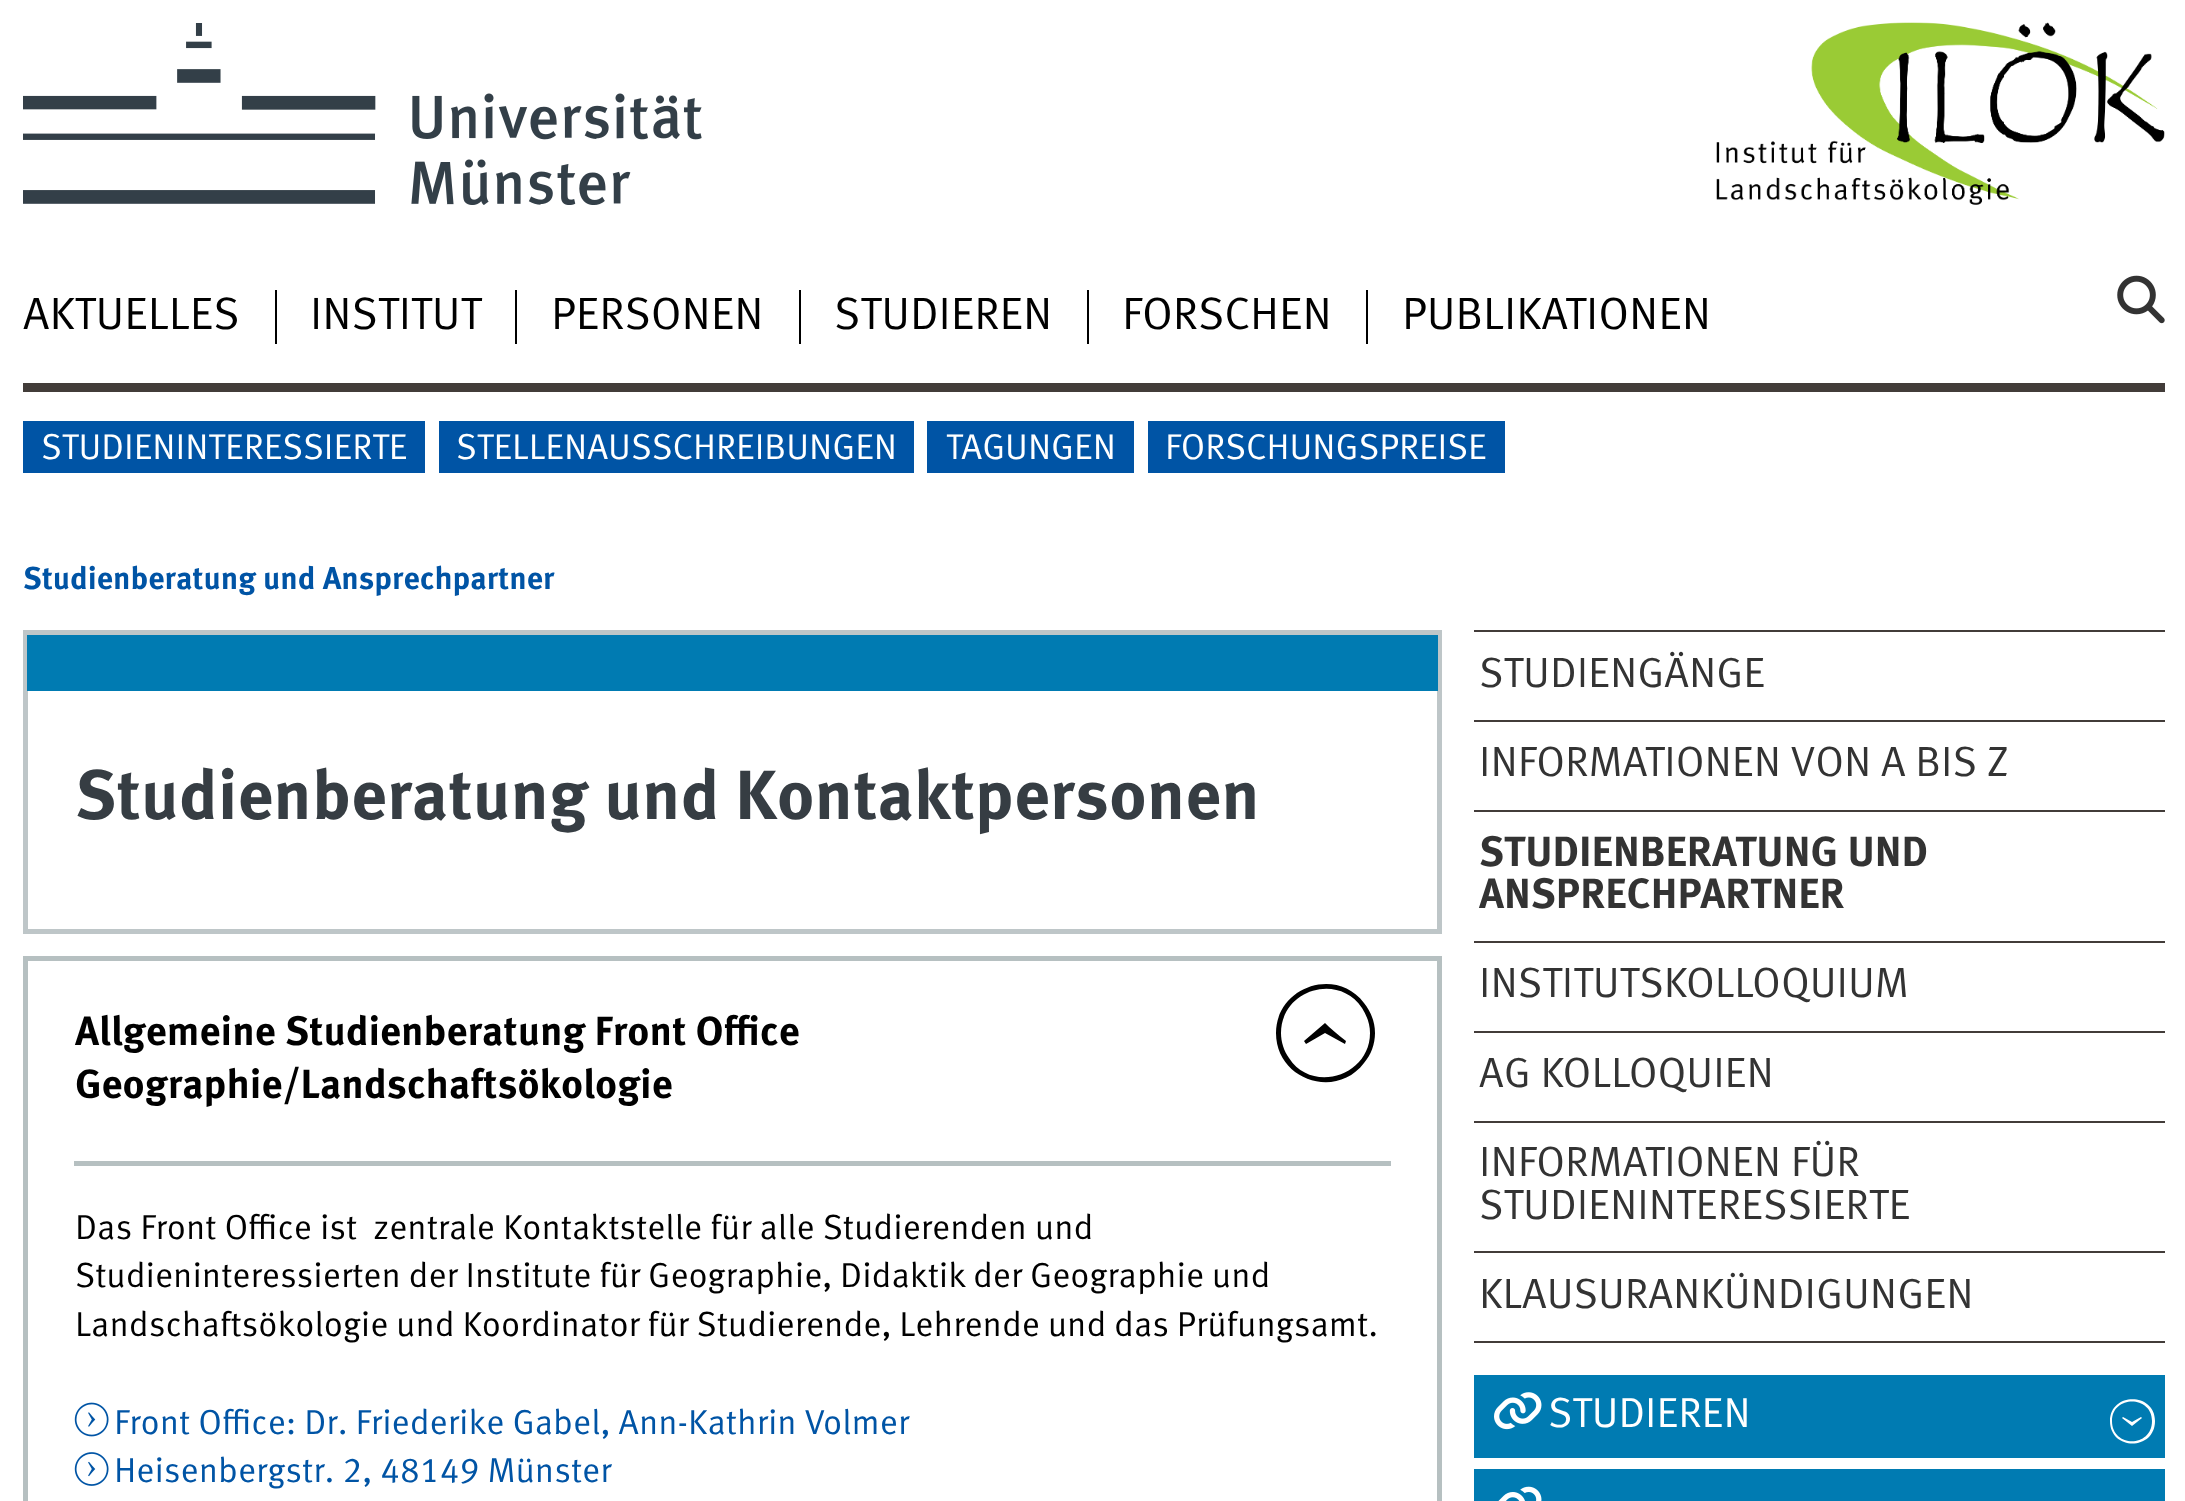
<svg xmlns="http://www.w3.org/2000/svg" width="2185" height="1501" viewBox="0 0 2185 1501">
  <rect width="100%" height="100%" fill="rgb(255,255,255)"/>
  <image x="23" y="23" width="679" height="182" href="pic1.png"/>
  <image x="1716" y="22" width="449" height="183" href="pic2.png"/>
  <rect x="23" y="383" width="2142" height="9" fill="rgb(66,60,57)"/>
  <text x="23" y="329" font-family="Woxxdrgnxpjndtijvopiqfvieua" font-size="45.25" fill="rgb(0,0,0)">AKTUELLES</text>
  <rect x="275" y="290" width="2" height="54" fill="rgb(0,0,0)"/>
  <text x="310" y="329" font-family="Woxxdrgnxpjndtijvopiqfvieua" font-size="45.25" fill="rgb(0,0,0)">INSTITUT</text>
  <rect x="515" y="290" width="2" height="54" fill="rgb(0,0,0)"/>
  <text x="551" y="329" font-family="Woxxdrgnxpjndtijvopiqfvieua" font-size="45.25" fill="rgb(0,0,0)">PERSONEN</text>
  <rect x="799" y="290" width="2" height="54" fill="rgb(0,0,0)"/>
  <text x="834" y="329" font-family="Woxxdrgnxpjndtijvopiqfvieua" font-size="45.25" fill="rgb(0,0,0)">STUDIEREN</text>
  <rect x="1087" y="290" width="2" height="54" fill="rgb(0,0,0)"/>
  <text x="1122" y="329" font-family="Woxxdrgnxpjndtijvopiqfvieua" font-size="45.25" fill="rgb(0,0,0)">FORSCHEN</text>
  <rect x="1366" y="290" width="2" height="54" fill="rgb(0,0,0)"/>
  <text x="1402" y="329" font-family="Woxxdrgnxpjndtijvopiqfvieua" font-size="45.25" fill="rgb(0,0,0)">PUBLIKATIONEN</text>
  <image x="2117" y="275" width="48" height="49" href="pic3.png"/>
  <rect x="23" y="421" width="402" height="52" fill="rgb(0,84,165)"/>
  <text x="41" y="459" font-family="Woxxdrgnxpjndtijvopiqfvieua" font-size="35.9" fill="rgb(255,255,255)">STUDIENINTERESSIERTE</text>
  <rect x="439" y="421" width="475" height="52" fill="rgb(0,84,165)"/>
  <text x="456" y="459" font-family="Woxxdrgnxpjndtijvopiqfvieua" font-size="35.9" fill="rgb(255,255,255)">STELLENAUSSCHREIBUNGEN</text>
  <rect x="927" y="421" width="207" height="52" fill="rgb(0,84,165)"/>
  <text x="946" y="459" font-family="Woxxdrgnxpjndtijvopiqfvieua" font-size="35.9" fill="rgb(255,255,255)">TAGUNGEN</text>
  <rect x="1148" y="421" width="357" height="52" fill="rgb(0,84,165)"/>
  <text x="1165" y="459" font-family="Woxxdrgnxpjndtijvopiqfvieua" font-size="35.9" fill="rgb(255,255,255)">FORSCHUNGSPREISE</text>
  <text x="23" y="589" font-family="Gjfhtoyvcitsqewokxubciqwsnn" font-size="31.6" font-weight="bold" fill="rgb(0,84,165)">Studienberatung und Ansprechpartner</text>
  <rect x="25.5" y="632.5" width="1414" height="299" fill="none" stroke="rgb(190,198,200)" stroke-width="5"/>
  <rect x="27" y="635" width="1411" height="56" fill="rgb(0,123,178)"/>
  <text x="75" y="819" font-family="Gjfhtoyvcitsqewokxubciqwsnn" font-size="69.6" font-weight="bold" fill="rgb(54,61,67)">Studienberatung und Kontaktpersonen</text>
  <rect x="25.5" y="958.5" width="1414" height="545" fill="none" stroke="rgb(182,192,193)" stroke-width="5"/>
  <rect x="74" y="1161" width="1317" height="5" fill="rgb(182,192,193)"/>
  <text x="75" y="1045" font-family="Gjfhtoyvcitsqewokxubciqwsnn" font-size="40.75" font-weight="bold" fill="rgb(0,0,0)">Allgemeine Studienberatung Front Office</text>
  <path d="M1276 1033C1276 987 1336 966 1364 1003C1371 1012 1375 1022 1375 1033C1375 1044 1371 1055 1364 1063C1336 1100 1276 1080 1276 1033ZM1281 1033C1281 1042 1284 1051 1289 1058C1312 1094 1370 1076 1370 1033C1370 1024 1367 1016 1362 1008C1338 972 1281 990 1281 1033ZM1304 1041L1325 1023C1330 1028 1337 1034 1346 1041L1345 1044L1325 1033L1306 1044Z" fill="rgb(0,0,0)"/>
  <text x="75" y="1098" font-family="Gjfhtoyvcitsqewokxubciqwsnn" font-size="40.75" font-weight="bold" fill="rgb(0,0,0)">Geographie/Landschaftsökologie</text>
  <g font-family="Woxxdrgnxpjndtijvopiqfvieua" font-size="34.8" fill="rgb(0,0,0)">
    <text xml:space="preserve"><tspan x="75" y="1239">Das Front Office ist  zentrale Kontaktstelle für alle Studierenden und</tspan><tspan x="75" y="1287" word-spacing="-0.25">Studieninteressierten der Institute für Geographie, Didaktik der Geographie und</tspan><tspan x="75" y="1336" word-spacing="-0.25">Landschaftsökologie und Koordinator für Studierende, Lehrende und das Prüfungsamt.</tspan></text>
  </g>
  <image x="74" y="1402" width="35" height="35" href="pic4.png"/>
  <text x="114" y="1434" font-family="Woxxdrgnxpjndtijvopiqfvieua" font-size="34.8" fill="rgb(0,84,165)">Front Office: Dr. Friederike Gabel, Ann-Kathrin Volmer</text>
  <image x="74" y="1452" width="35" height="34" href="pic5.png"/>
  <text x="114" y="1482" font-family="Woxxdrgnxpjndtijvopiqfvieua" font-size="34.8" fill="rgb(0,84,165)">Heisenbergstr. 2, 48149 Münster</text>
  <rect x="1474" y="630" width="691" height="2" fill="rgb(66,60,57)"/>
  <text x="1479" y="687" font-family="Woxxdrgnxpjndtijvopiqfvieua" font-size="42.25" fill="rgb(51,51,51)">STUDIENGÄNGE</text>
  <rect x="1474" y="720" width="691" height="2" fill="rgb(66,60,57)"/>
  <text x="1479" y="776" font-family="Woxxdrgnxpjndtijvopiqfvieua" font-size="42.25" fill="rgb(51,51,51)">INFORMATIONEN VON A BIS Z</text>
  <rect x="1474" y="810" width="691" height="2" fill="rgb(66,60,57)"/>
  <g font-family="Gjfhtoyvcitsqewokxubciqwsnn" font-size="42.25" font-weight="bold" fill="rgb(51,51,51)">
    <text>
      <tspan x="1479" y="866">STUDIENBERATUNG UND</tspan>
      <tspan x="1479" y="908">ANSPRECHPARTNER</tspan>
    </text>
  </g>
  <rect x="1474" y="941" width="691" height="2" fill="rgb(66,60,57)"/>
  <text x="1479" y="997" font-family="Woxxdrgnxpjndtijvopiqfvieua" font-size="42.25" fill="rgb(51,51,51)">INSTITUTSKOLLOQUIUM</text>
  <rect x="1474" y="1031" width="691" height="2" fill="rgb(66,60,57)"/>
  <text x="1479" y="1087" font-family="Woxxdrgnxpjndtijvopiqfvieua" font-size="42.25" fill="rgb(51,51,51)">AG KOLLOQUIEN</text>
  <rect x="1474" y="1121" width="691" height="2" fill="rgb(66,60,57)"/>
  <g font-family="Woxxdrgnxpjndtijvopiqfvieua" font-size="42.25" fill="rgb(51,51,51)">
    <text>
      <tspan x="1479" y="1176">INFORMATIONEN FÜR</tspan>
      <tspan x="1479" y="1219">STUDIENINTERESSIERTE</tspan>
    </text>
  </g>
  <rect x="1474" y="1251" width="691" height="2" fill="rgb(66,60,57)"/>
  <rect x="1474" y="1341" width="691" height="2" fill="rgb(66,60,57)"/>
  <text x="1479" y="1308" font-family="Woxxdrgnxpjndtijvopiqfvieua" font-size="42.25" fill="rgb(51,51,51)">KLAUSURANKÜNDIGUNGEN</text>
  <rect x="1474" y="1375" width="691" height="83" fill="rgb(0,123,178)"/>
  <image x="1494" y="1392" width="48" height="38" href="pic6.png"/>
  <text x="1548" y="1427" font-family="Woxxdrgnxpjndtijvopiqfvieua" font-size="42" fill="rgb(255,255,255)">STUDIEREN</text>
  <path d="M2155 1421C2155 1451 2110 1451 2110 1421C2110 1392 2155 1392 2155 1421ZM2152 1421C2152 1395 2112 1395 2112 1421C2112 1448 2152 1448 2152 1421ZM2142 1418L2132 1426L2122 1418L2123 1417L2132 1422L2141 1417Z" fill="rgb(255,255,255)"/>
  <rect x="1474" y="1469" width="691" height="32" fill="rgb(0,123,178)"/>
  <image x="1498" y="1486" width="44" height="15" href="pic7.png"/>
</svg>
